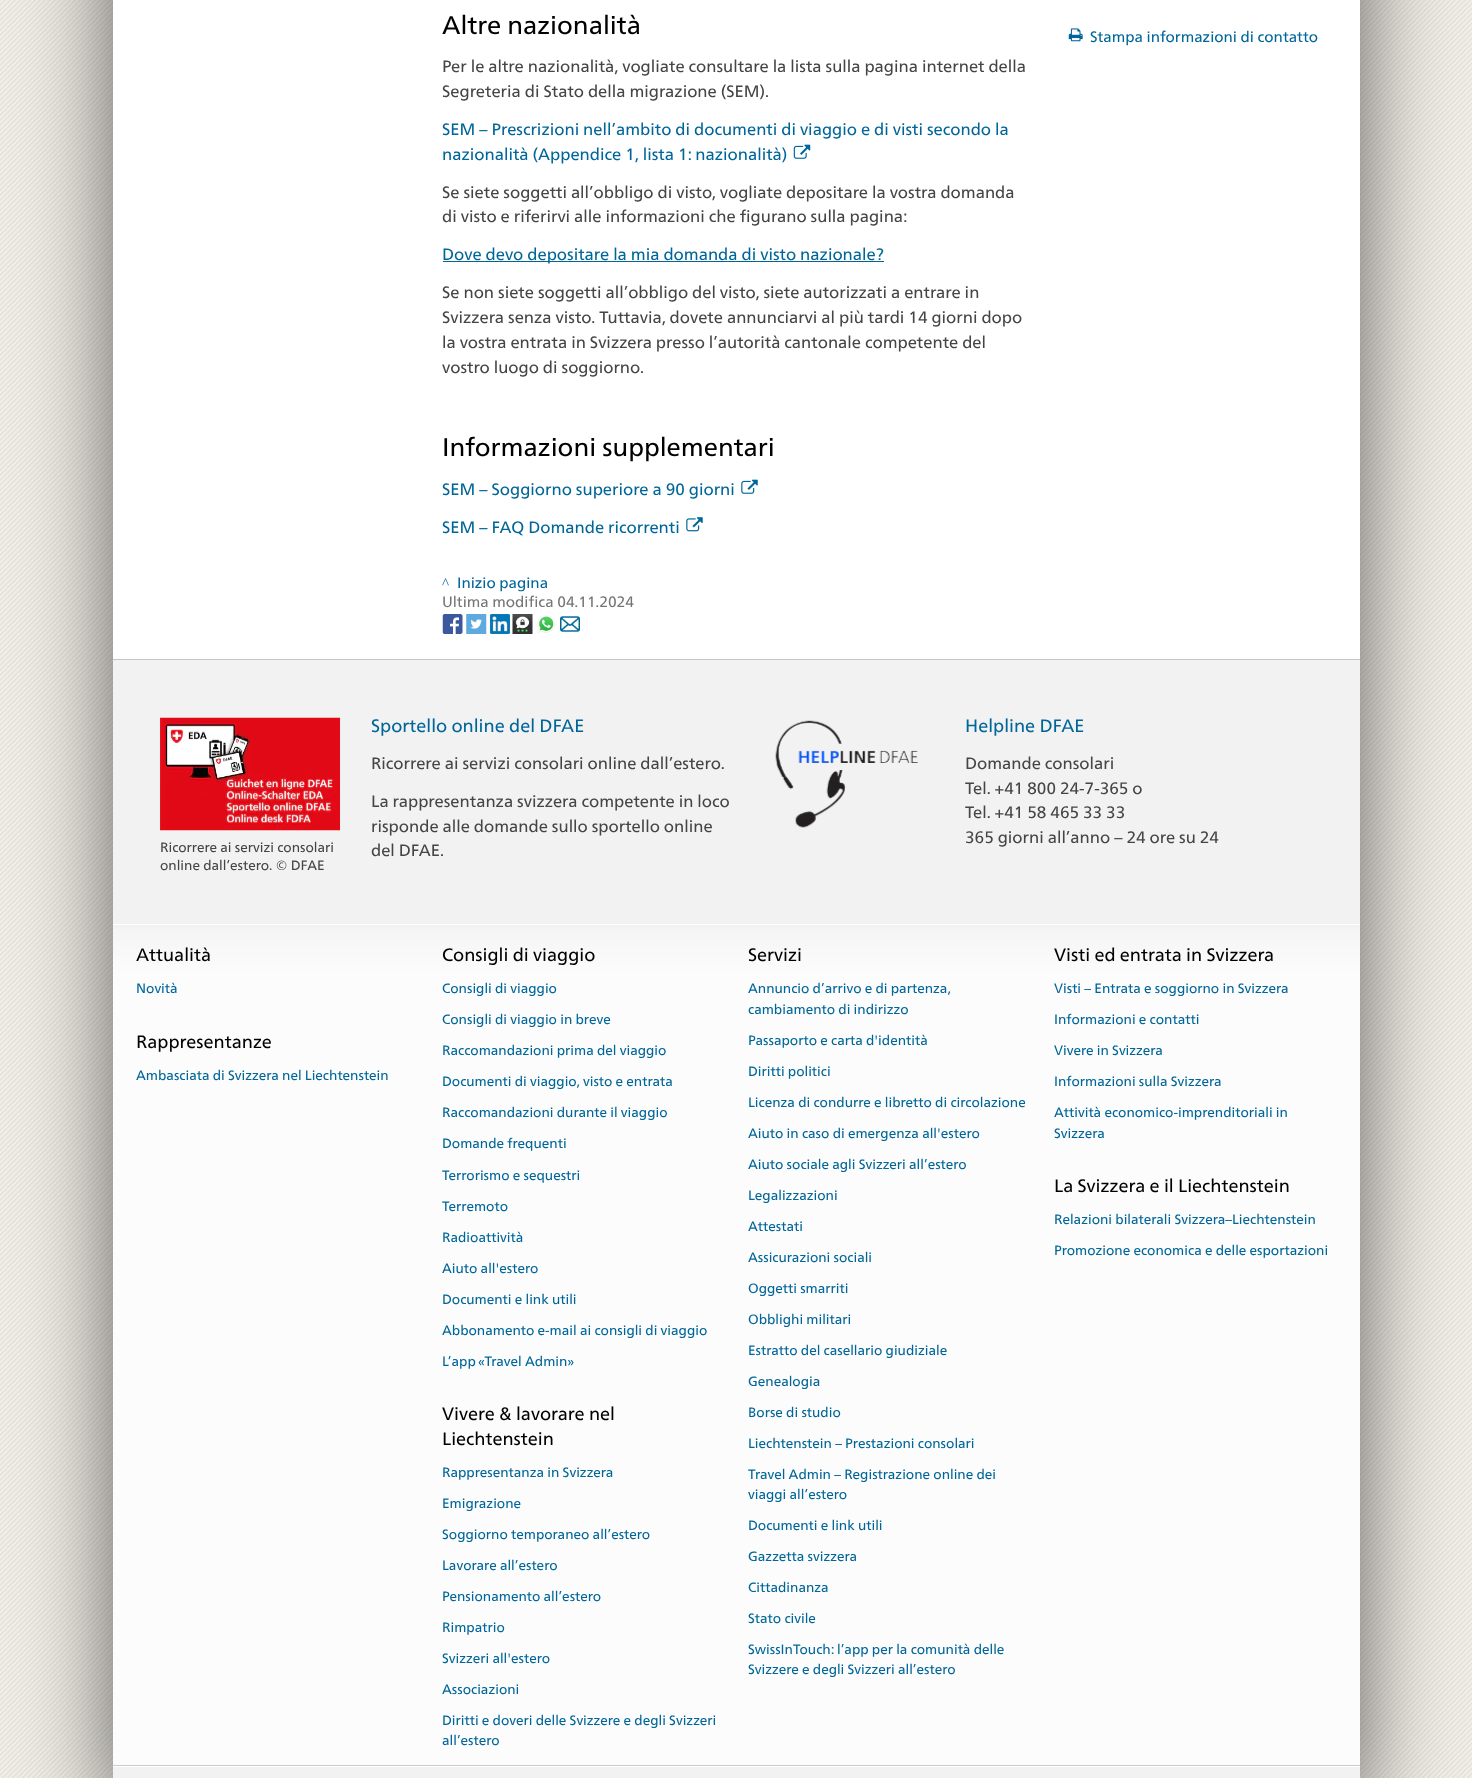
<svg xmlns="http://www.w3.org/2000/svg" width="1472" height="1778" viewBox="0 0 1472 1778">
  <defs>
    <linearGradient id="g1" gradientUnits="userSpaceOnUse" x1="736" y1="925" x2="736" y2="1765"><stop offset="0" stop-color="rgb(244,244,244)"/><stop offset="0.06" stop-color="rgb(252,252,252)"/></linearGradient>
  </defs>
  <rect width="100%" height="100%" fill="rgb(255,255,255)"/>
  <image x="0" y="0" width="1472" height="1778" href="pic1.png"/>
  <rect x="113" y="-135" width="1247" height="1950" fill="rgba(0,0,0,0.6)" filter="blur(45px)"/>
  <rect x="113" y="0" width="1247" height="659" fill="rgb(255,255,255)"/>
  <text x="442" y="34" font-family="'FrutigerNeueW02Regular'" font-size="25.5" fill="rgb(0,0,0)">Altre nazionalità</text>
  <g font-family="'FrutigerNeueW02Regular'" font-size="16.5" fill="rgb(69,69,69)">
    <text>
      <tspan x="442" y="72">Per le altre nazionalità, vogliate consultare la lista sulla pagina internet della</tspan>
      <tspan x="442" y="97">Segreteria di Stato della migrazione (SEM).</tspan>
    </text>
  </g>
  <g font-family="'FrutigerNeueW02Regular'" font-size="16.5" fill="rgb(0,102,153)">
    <text>
      <tspan x="442" y="135">SEM – Prescrizioni nell’ambito di documenti di viaggio e di visti secondo la</tspan>
      <tspan x="442" y="160">nazionalità (Appendice 1, lista 1: nazionalità)</tspan>
    </text>
  </g>
  <image x="793" y="144" width="18" height="15" href="pic2.png"/>
  <g font-family="'FrutigerNeueW02Regular'" font-size="16.5" fill="rgb(69,69,69)">
    <text>
      <tspan x="442" y="198">Se siete soggetti all’obbligo di visto, vogliate depositare la vostra domanda</tspan>
      <tspan x="442" y="222">di visto e riferirvi alle informazioni che figurano sulla pagina:</tspan>
    </text>
  </g>
  <rect x="443" y="261" width="441" height="1" fill="rgb(0,102,153)"/>
  <text x="442" y="260" font-family="'FrutigerNeueW02Regular'" font-size="16.5" fill="rgb(0,102,153)">Dove devo depositare la mia domanda di visto nazionale?</text>
  <g font-family="'FrutigerNeueW02Regular'" font-size="16.5" fill="rgb(69,69,69)">
    <text>
      <tspan x="442" y="298">Se non siete soggetti all’obbligo del visto, siete autorizzati a entrare in</tspan>
      <tspan x="442" y="323">Svizzera senza visto. Tuttavia, dovete annunciarvi al più tardi 14 giorni dopo</tspan>
      <tspan x="442" y="348">la vostra entrata in Svizzera presso l’autorità cantonale competente del</tspan>
      <tspan x="442" y="373">vostro luogo di soggiorno.</tspan>
    </text>
  </g>
  <text x="442" y="456" font-family="'FrutigerNeueW02Regular'" font-size="25.5" fill="rgb(0,0,0)">Informazioni supplementari</text>
  <text x="442" y="495" font-family="'FrutigerNeueW02Regular'" font-size="16.5" fill="rgb(0,102,153)">SEM – Soggiorno superiore a 90 giorni</text>
  <image x="741" y="479" width="17" height="15" href="pic3.png"/>
  <text x="442" y="533" font-family="'FrutigerNeueW02Regular'" font-size="16.5" fill="rgb(0,102,153)">SEM – FAQ Domande ricorrenti</text>
  <image x="686" y="517" width="17" height="15" href="pic4.png"/>
  <text x="442" y="588" font-family="Liberation Serif" font-size="15" fill="rgb(0,102,153)">^</text>
  <text x="457" y="588" font-family="'FrutigerNeueW02Regular'" font-size="15" fill="rgb(0,102,153)">Inizio pagina</text>
  <text x="442" y="607" font-family="'FrutigerNeueW02Regular'" font-size="15" fill="rgb(117,117,117)">Ultima modifica 04.11.2024</text>
  <image x="442" y="614" width="21" height="20" href="pic5.png"/>
  <image x="466" y="614" width="21" height="20" href="pic6.png"/>
  <image x="490" y="614" width="20" height="20" href="pic7.png"/>
  <image x="512" y="614" width="21" height="20" href="pic8.png"/>
  <image x="537" y="616" width="18" height="17" href="pic9.png"/>
  <image x="560" y="616" width="20" height="16" href="pic10.png"/>
  <image x="1068" y="28" width="15" height="14" href="pic11.png"/>
  <text x="1090" y="42" font-family="'FrutigerNeueW02Regular'" font-size="15" fill="rgb(0,102,153)">Stampa informazioni di contatto</text>
  <rect x="113" y="660" width="1247" height="1118" fill="rgb(242,242,242)"/>
  <rect x="113" y="659" width="1247" height="1" fill="rgb(197,197,197)"/>
  <text x="371" y="732" font-family="'FrutigerNeueW02Regular'" font-size="18" fill="rgb(0,102,153)">Sportello online del DFAE</text>
  <text x="371" y="769" font-family="'FrutigerNeueW02Regular'" font-size="16.5" fill="rgb(69,69,69)">Ricorrere ai servizi consolari online dall’estero.</text>
  <image x="160" y="717" width="180" height="114" href="pic12.png"/>
  <g font-family="'FrutigerNeueW02Regular'" font-size="13.5" fill="rgb(69,69,69)">
    <text>
      <tspan x="160" y="852">Ricorrere ai servizi consolari</tspan>
      <tspan x="160" y="870">online dall’estero. © DFAE</tspan>
    </text>
  </g>
  <g font-family="'FrutigerNeueW02Regular'" font-size="16.5" fill="rgb(69,69,69)">
    <text>
      <tspan x="371" y="807">La rappresentanza svizzera competente in loco</tspan>
      <tspan x="371" y="832">risponde alle domande sullo sportello online</tspan>
      <tspan x="371" y="856">del DFAE.</tspan>
    </text>
  </g>
  <image x="775" y="720" width="143" height="108" href="pic13.png"/>
  <text x="965" y="732" font-family="'FrutigerNeueW02Regular'" font-size="18" fill="rgb(0,102,153)">Helpline DFAE</text>
  <g font-family="'FrutigerNeueW02Regular'" font-size="16.5" fill="rgb(69,69,69)">
    <text>
      <tspan x="965" y="769">Domande consolari</tspan>
      <tspan x="965" y="794">Tel. +41 800 24-7-365 o</tspan>
      <tspan x="965" y="818">Tel. +41 58 465 33 33</tspan>
      <tspan x="965" y="843">365 giorni all’anno – 24 ore su 24</tspan>
    </text>
  </g>
  <rect x="113" y="928" width="1247" height="837" fill="url(#g1)"/>
  <rect x="113" y="924" width="1247" height="1" fill="rgb(255,255,255)"/>
  <rect x="113" y="1765" width="1247" height="1" fill="rgb(204,204,204)"/>
  <text x="136" y="961" font-family="'FrutigerNeueW02Regular'" font-size="18" fill="rgb(0,0,0)">Attualità</text>
  <text x="136" y="993" font-family="'FrutigerNeueW02Regular'" font-size="13.5" fill="rgb(0,102,153)">Novità</text>
  <text x="136" y="1048" font-family="'FrutigerNeueW02Regular'" font-size="18" fill="rgb(0,0,0)">Rappresentanze</text>
  <text x="136" y="1080" font-family="'FrutigerNeueW02Regular'" font-size="13.5" fill="rgb(0,102,153)">Ambasciata di Svizzera nel Liechtenstein</text>
  <text x="442" y="961" font-family="'FrutigerNeueW02Regular'" font-size="18" fill="rgb(0,0,0)">Consigli di viaggio</text>
  <g font-family="'FrutigerNeueW02Regular'" font-size="13.5" fill="rgb(0,102,153)">
    <text x="442" y="993">Consigli di viaggio</text>
    <text x="442" y="1024">Consigli di viaggio in breve</text>
    <text x="442" y="1055">Raccomandazioni prima del viaggio</text>
    <text x="442" y="1086">Documenti di viaggio, visto e entrata</text>
    <text x="442" y="1117">Raccomandazioni durante il viaggio</text>
    <text x="442" y="1148">Domande frequenti</text>
    <text x="442" y="1180">Terrorismo e sequestri</text>
    <text x="442" y="1211">Terremoto</text>
    <text x="442" y="1242">Radioattività</text>
    <text x="442" y="1273">Aiuto all'estero</text>
    <text x="442" y="1304">Documenti e link utili</text>
    <text x="442" y="1335">Abbonamento e-mail ai consigli di viaggio</text>
    <text x="442" y="1366">L’app «Travel Admin»</text>
  </g>
  <g font-family="'FrutigerNeueW02Regular'" font-size="18" fill="rgb(0,0,0)">
    <text>
      <tspan x="442" y="1420">Vivere &amp; lavorare nel</tspan>
      <tspan x="442" y="1445">Liechtenstein</tspan>
    </text>
  </g>
  <g font-family="'FrutigerNeueW02Regular'" font-size="13.5" fill="rgb(0,102,153)">
    <text x="442" y="1477">Rappresentanza in Svizzera</text>
    <text x="442" y="1508">Emigrazione</text>
    <text x="442" y="1539">Soggiorno temporaneo all’estero</text>
    <text x="442" y="1570">Lavorare all’estero</text>
    <text x="442" y="1601">Pensionamento all’estero</text>
    <text x="442" y="1632">Rimpatrio</text>
    <text x="442" y="1663">Svizzeri all'estero</text>
    <text x="442" y="1694">Associazioni</text>
    <text>
      <tspan x="442" y="1725">Diritti e doveri delle Svizzere e degli Svizzeri</tspan>
      <tspan x="442" y="1745">all’estero</tspan>
    </text>
  </g>
  <text x="748" y="961" font-family="'FrutigerNeueW02Regular'" font-size="18" fill="rgb(0,0,0)">Servizi</text>
  <g font-family="'FrutigerNeueW02Regular'" font-size="13.5" fill="rgb(0,102,153)">
    <text>
      <tspan x="748" y="993">Annuncio d’arrivo e di partenza,</tspan>
      <tspan x="748" y="1014">cambiamento di indirizzo</tspan>
    </text>
    <text x="748" y="1045">Passaporto e carta d'identità</text>
    <text x="748" y="1076">Diritti politici</text>
    <text x="748" y="1107">Licenza di condurre e libretto di circolazione</text>
    <text x="748" y="1138">Aiuto in caso di emergenza all'estero</text>
    <text x="748" y="1169">Aiuto sociale agli Svizzeri all’estero</text>
    <text x="748" y="1200">Legalizzazioni</text>
    <text x="748" y="1231">Attestati</text>
    <text x="748" y="1262">Assicurazioni sociali</text>
    <text x="748" y="1293">Oggetti smarriti</text>
    <text x="748" y="1324">Obblighi militari</text>
    <text x="748" y="1355">Estratto del casellario giudiziale</text>
    <text x="748" y="1386">Genealogia</text>
    <text x="748" y="1417">Borse di studio</text>
    <text x="748" y="1448">Liechtenstein – Prestazioni consolari</text>
    <text>
      <tspan x="748" y="1479">Travel Admin – Registrazione online dei</tspan>
      <tspan x="748" y="1499">viaggi all’estero</tspan>
    </text>
    <text x="748" y="1530">Documenti e link utili</text>
    <text x="748" y="1561">Gazzetta svizzera</text>
    <text x="748" y="1592">Cittadinanza</text>
    <text x="748" y="1623">Stato civile</text>
    <text>
      <tspan x="748" y="1654">SwissInTouch: l’app per la comunità delle</tspan>
      <tspan x="748" y="1674">Svizzere e degli Svizzeri all’estero</tspan>
    </text>
  </g>
  <text x="1054" y="961" font-family="'FrutigerNeueW02Regular'" font-size="18" fill="rgb(0,0,0)">Visti ed entrata in Svizzera</text>
  <g font-family="'FrutigerNeueW02Regular'" font-size="13.5" fill="rgb(0,102,153)">
    <text x="1054" y="993">Visti – Entrata e soggiorno in Svizzera</text>
    <text x="1054" y="1024">Informazioni e contatti</text>
    <text x="1054" y="1055">Vivere in Svizzera</text>
    <text x="1054" y="1086">Informazioni sulla Svizzera</text>
    <text>
      <tspan x="1054" y="1117">Attività economico-imprenditoriali in</tspan>
      <tspan x="1054" y="1138">Svizzera</tspan>
    </text>
  </g>
  <text x="1054" y="1192" font-family="'FrutigerNeueW02Regular'" font-size="18" fill="rgb(0,0,0)">La Svizzera e il Liechtenstein</text>
  <g font-family="'FrutigerNeueW02Regular'" font-size="13.5" fill="rgb(0,102,153)">
    <text x="1054" y="1224">Relazioni bilaterali Svizzera–Liechtenstein</text>
    <text x="1054" y="1255">Promozione economica e delle esportazioni</text>
  </g>
  <rect x="113" y="1766" width="1247" height="1" fill="rgb(255,255,255)"/>
</svg>
